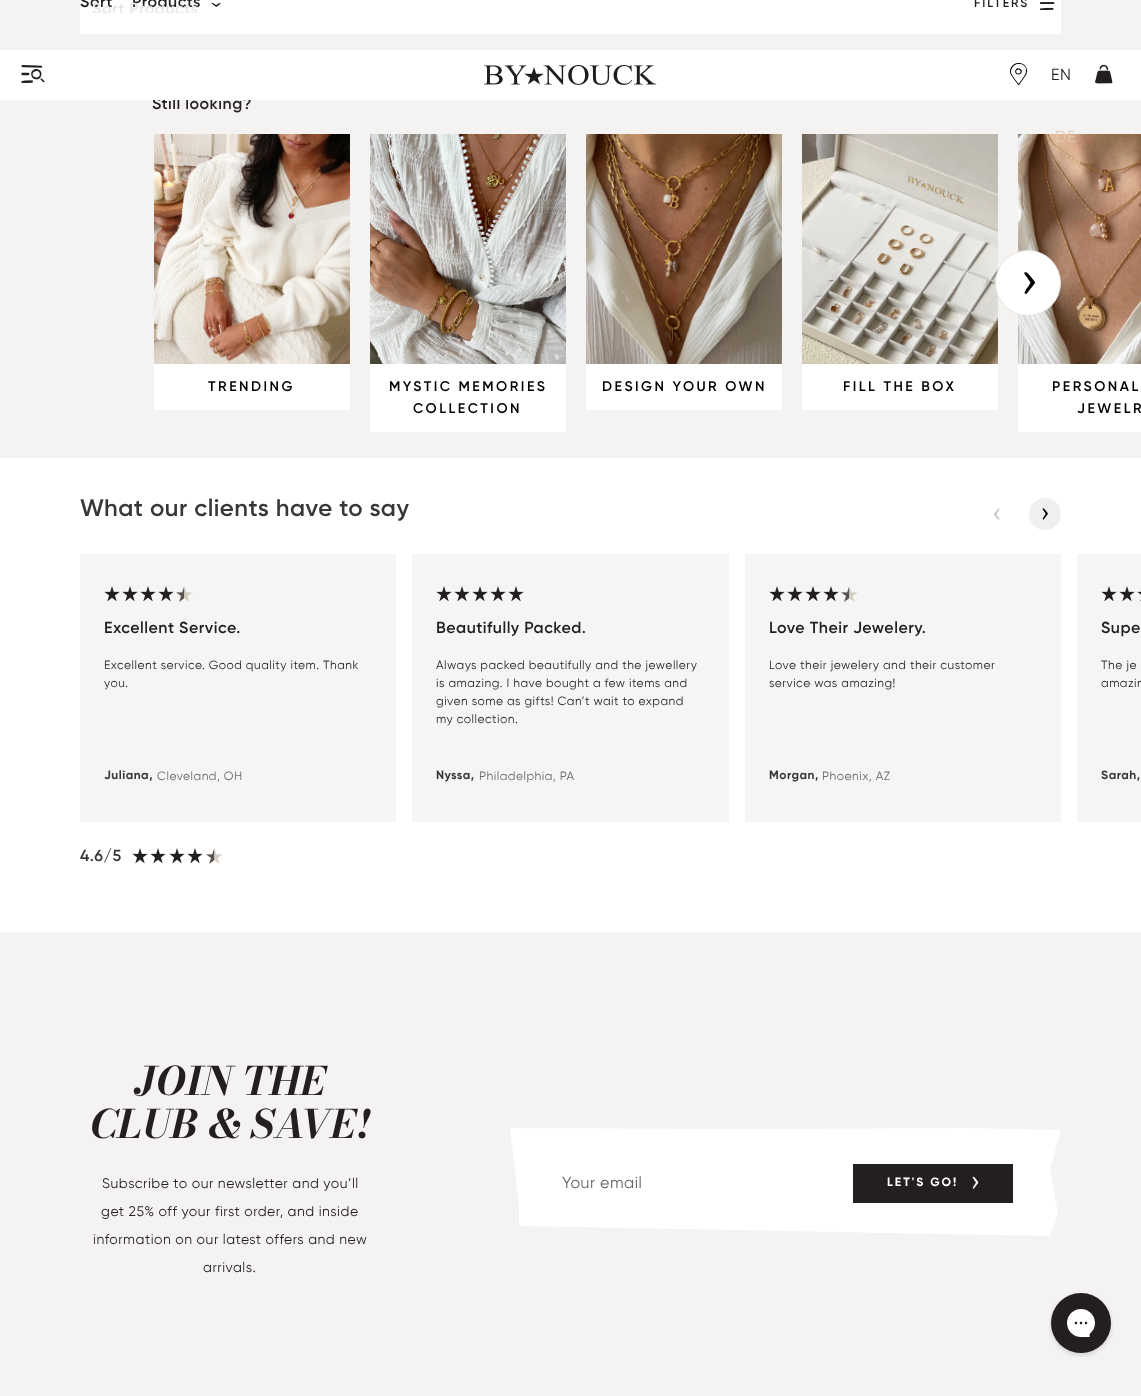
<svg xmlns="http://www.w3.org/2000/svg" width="1141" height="1396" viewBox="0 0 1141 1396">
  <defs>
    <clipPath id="clip1"><rect x="92" y="2" width="129" height="11"/></clipPath>
  </defs>
  <rect width="100%" height="100%" fill="rgb(255,255,255)"/>
  <rect x="0" y="0" width="1141" height="50" fill="rgb(244,243,241)"/>
  <rect x="80" y="0" width="981" height="34" fill="rgb(255,255,255)"/>
  <image x="211" y="2" width="10" height="5" href="pic1.png"/>
  <g font-family="Gilroy" font-size="16" font-weight="600" letter-spacing="0.5" fill="rgb(35,31,32)">
    <text x="80" y="7">Sort</text>
    <text x="132" y="7">Products</text>
  </g>
  <g clip-path="url(#clip1)">
    <text x="92" y="14" font-family="Gilroy" font-size="16" font-weight="600" letter-spacing="0.5" fill="rgb(232,231,231)">Sort Products</text>
  </g>
  <text x="974" y="7" font-family="Gilroy" font-size="12" font-weight="600" letter-spacing="2" fill="rgb(35,31,32)">FILTERS</text>
  <image x="1040" y="2" width="15" height="3" href="pic2.png"/>
  <image x="1040" y="7" width="14" height="3" href="pic3.png"/>
  <rect x="0" y="100" width="1141" height="358" fill="rgb(244,243,241)"/>
  <text x="152" y="109" font-family="Gilroy" font-size="16" font-weight="600" letter-spacing="0.5" fill="rgb(35,31,32)">Still looking?</text>
  <rect x="802" y="134" width="196" height="276" fill="rgb(255,255,255)"/>
  <image x="802" y="134" width="196" height="230" href="pic8.png"/>
  <image x="1018" y="134" width="123" height="230" href="pic9.png"/>
  <circle cx="1028" cy="283" r="32.5" fill="rgb(255,255,255)" stroke="rgb(232,227,221)"/>
  <image x="1024" y="272" width="11" height="22" href="pic4.png"/>
  <rect x="154" y="134" width="196" height="276" fill="rgb(255,255,255)"/>
  <image x="154" y="134" width="196" height="230" href="pic5.png"/>
  <text x="208" y="391" font-family="Gilroy" font-size="14" font-weight="600" letter-spacing="2.5" fill="rgb(0,0,0)">TRENDING</text>
  <rect x="370" y="134" width="196" height="298" fill="rgb(255,255,255)"/>
  <image x="370" y="134" width="196" height="230" href="pic6.png"/>
  <g font-family="Gilroy" font-size="14" font-weight="600" letter-spacing="2.5" fill="rgb(0,0,0)">
    <text x="389" y="391">MYSTIC MEMORIES</text>
    <text x="413" y="413">COLLECTION</text>
  </g>
  <rect x="586" y="134" width="196" height="276" fill="rgb(255,255,255)"/>
  <image x="586" y="134" width="196" height="230" href="pic7.png"/>
  <g font-family="Gilroy" font-size="14" font-weight="600" letter-spacing="2.5" fill="rgb(0,0,0)">
    <text x="602" y="391">DESIGN YOUR OWN</text>
    <text x="843" y="391">FILL THE BOX</text>
  </g>
  <rect x="1018" y="364" width="123" height="68" fill="rgb(255,255,255)"/>
  <g font-family="Gilroy" font-size="14" font-weight="600" letter-spacing="2.5" fill="rgb(0,0,0)">
    <text x="1052" y="391">PERSONAL</text>
    <text x="1077" y="413">JEWELR</text>
  </g>
  <rect x="153" y="97" width="98" height="3" fill="rgb(255,255,255)"/>
  <image x="21" y="65" width="24" height="18" href="pic10.png"/>
  <image x="484" y="65" width="173" height="20" href="pic11.png"/>
  <image x="1010" y="63" width="17" height="22" href="pic12.png"/>
  <text x="1051" y="80" font-family="Gilroy" font-size="16" letter-spacing="0.5" fill="rgb(35,31,32)">EN</text>
  <text x="1055" y="142" font-family="Gilroy" font-size="16" letter-spacing="0.5" fill="rgb(229,202,181)">DE</text>
  <image x="1095" y="64" width="18" height="20" href="pic13.png"/>
  <text x="80" y="516" font-family="Gilroy" font-size="24" font-weight="600" letter-spacing="0.5" fill="rgb(55,55,55)">What our clients have to say</text>
  <image x="994" y="508" width="6" height="12" href="pic14.png"/>
  <path d="M1045 530C1036 530 1029 523 1029 514C1029 505 1036 498 1045 498C1054 498 1061 505 1061 514C1061 523 1054 530 1045 530Z" fill="rgb(239,239,239)"/>
  <image x="1042" y="508" width="6" height="12" href="pic15.png"/>
  <rect x="80" y="554" width="316" height="268" fill="rgb(245,245,245)"/>
  <image x="104" y="586" width="16" height="16" href="pic16.png"/>
  <image x="122" y="586" width="16" height="16" href="pic16.png"/>
  <image x="140" y="586" width="16" height="16" href="pic16.png"/>
  <image x="158" y="586" width="16" height="16" href="pic16.png"/>
  <image x="176" y="586" width="17" height="16" href="pic17.png"/>
  <text x="104" y="633" font-family="Gilroy" font-size="16" font-weight="600" letter-spacing="0.5" fill="rgb(35,31,32)">Excellent Service.</text>
  <g font-family="Gilroy" font-size="12" letter-spacing="0.5" fill="rgb(35,31,32)">
    <text>
      <tspan x="104" y="669">Excellent service. Good quality item. Thank</tspan>
      <tspan x="104" y="687">you.</tspan>
    </text>
  </g>
  <text x="104" y="779" font-family="Gilroy" font-size="12" font-weight="bold" letter-spacing="0.5" fill="rgb(55,55,55)">Juliana,</text>
  <text x="157" y="780" font-family="Gilroy" font-size="12" letter-spacing="0.5" fill="rgb(106,105,106)">Cleveland, OH</text>
  <rect x="412" y="554" width="317" height="268" fill="rgb(245,245,245)"/>
  <image x="436" y="586" width="16" height="16" href="pic16.png"/>
  <image x="454" y="586" width="16" height="16" href="pic16.png"/>
  <image x="472" y="586" width="16" height="16" href="pic16.png"/>
  <image x="490" y="586" width="16" height="16" href="pic16.png"/>
  <image x="508" y="586" width="16" height="16" href="pic16.png"/>
  <text x="436" y="633" font-family="Gilroy" font-size="16" font-weight="600" letter-spacing="0.5" fill="rgb(35,31,32)">Beautifully Packed.</text>
  <g font-family="Gilroy" font-size="12" letter-spacing="0.5" fill="rgb(35,31,32)">
    <text>
      <tspan x="436" y="669">Always packed beautifully and the jewellery</tspan>
      <tspan x="436" y="687">is amazing. I have bought a few items and</tspan>
      <tspan x="436" y="705">given some as gifts! Can’t wait to expand</tspan>
      <tspan x="436" y="723">my collection.</tspan>
    </text>
  </g>
  <text x="436" y="779" font-family="Gilroy" font-size="12" font-weight="bold" letter-spacing="0.5" fill="rgb(55,55,55)">Nyssa,</text>
  <text x="479" y="780" font-family="Gilroy" font-size="12" letter-spacing="0.5" fill="rgb(106,105,106)">Philadelphia, PA</text>
  <rect x="745" y="554" width="316" height="268" fill="rgb(245,245,245)"/>
  <image x="769" y="586" width="16" height="16" href="pic16.png"/>
  <image x="787" y="586" width="16" height="16" href="pic16.png"/>
  <image x="805" y="586" width="16" height="16" href="pic16.png"/>
  <image x="823" y="586" width="16" height="16" href="pic16.png"/>
  <image x="841" y="586" width="17" height="16" href="pic17.png"/>
  <text x="769" y="633" font-family="Gilroy" font-size="16" font-weight="600" letter-spacing="0.5" fill="rgb(35,31,32)">Love Their Jewelery.</text>
  <g font-family="Gilroy" font-size="12" letter-spacing="0.5" fill="rgb(35,31,32)">
    <text>
      <tspan x="769" y="669">Love their jewelery and their customer</tspan>
      <tspan x="769" y="687">service was amazing!</tspan>
    </text>
  </g>
  <text x="769" y="779" font-family="Gilroy" font-size="12" font-weight="bold" letter-spacing="0.5" fill="rgb(55,55,55)">Morgan,</text>
  <text x="822" y="780" font-family="Gilroy" font-size="12" letter-spacing="0.5" fill="rgb(106,105,106)">Phoenix, AZ</text>
  <rect x="1077" y="554" width="64" height="268" fill="rgb(245,245,245)"/>
  <image x="1101" y="586" width="16" height="16" href="pic16.png"/>
  <image x="1119" y="586" width="16" height="16" href="pic16.png"/>
  <image x="1137" y="591" width="4" height="11" href="pic18.png"/>
  <text x="1101" y="633" font-family="Gilroy" font-size="16" font-weight="600" letter-spacing="0.5" fill="rgb(35,31,32)">Supe</text>
  <g font-family="Gilroy" font-size="12" letter-spacing="0.5" fill="rgb(35,31,32)">
    <text>
      <tspan x="1101" y="669">The je</tspan>
      <tspan x="1101" y="687">amazin</tspan>
    </text>
  </g>
  <text x="1101" y="779" font-family="Gilroy" font-size="12" font-weight="bold" letter-spacing="0.5" fill="rgb(55,55,55)">Sarah,</text>
  <text x="80" y="861" font-family="Gilroy" font-size="16" font-weight="600" letter-spacing="0.5" fill="rgb(55,55,55)">4.6/5</text>
  <image x="132" y="848" width="16" height="16" href="pic19.png"/>
  <image x="150" y="848" width="16" height="16" href="pic19.png"/>
  <image x="169" y="848" width="16" height="16" href="pic19.png"/>
  <image x="187" y="848" width="16" height="16" href="pic19.png"/>
  <image x="206" y="848" width="17" height="16" href="pic20.png"/>
  <rect x="0" y="932" width="1141" height="464" fill="rgb(244,243,241)"/>
  <g font-family="Bodoni Moda" font-size="39" font-weight="bold" font-style="italic" letter-spacing="0.5" fill="rgb(35,31,32)">
    <text x="135" y="1095">JOIN THE</text>
    <text x="90" y="1138">CLUB &amp; SAVE!</text>
  </g>
  <g font-family="Gilroy" font-size="14" letter-spacing="0.5" fill="rgb(35,31,32)">
    <text x="102" y="1188">Subscribe to our newsletter and you’ll</text>
    <text x="101" y="1216">get 25% off your first order, and inside</text>
    <text x="93" y="1244">information on our latest offers and new</text>
    <text x="203" y="1272">arrivals.</text>
  </g>
  <path d="M967 1128L1061 1130L1050 1168L1058 1214L1050 1236L519 1226V1205L510 1128L742 1129Z" fill="rgb(255,255,255)"/>
  <text x="562" y="1188" font-family="Gilroy" font-size="16" letter-spacing="0.5" fill="rgb(101,98,99)">Your email</text>
  <rect x="853" y="1164" width="160" height="39" fill="rgb(35,31,32)"/>
  <text x="887" y="1186" font-family="Gilroy" font-size="12" font-weight="bold" letter-spacing="2" fill="rgb(255,255,255)">LET'S GO!</text>
  <image x="972" y="1176" width="7" height="13" href="pic21.png"/>
  <image x="1049" y="1293" width="64" height="64" href="pic22.png"/>
</svg>
